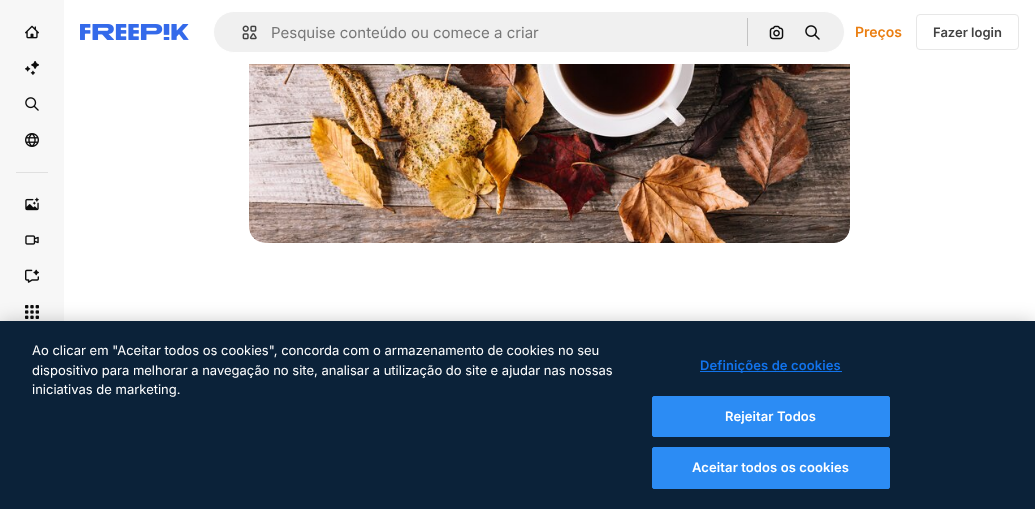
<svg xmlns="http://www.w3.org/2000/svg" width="1035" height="509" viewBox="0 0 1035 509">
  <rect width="100%" height="100%" fill="rgb(255,255,255)"/>
  <rect x="0" y="0" width="64" height="321" fill="rgb(247,247,247)"/>
  <image x="25" y="25" width="14" height="14" href="pic1.png"/>
  <image x="25" y="61" width="14" height="14" href="pic2.png"/>
  <image x="25" y="97" width="14" height="14" href="pic3.png"/>
  <image x="25" y="133" width="14" height="14" href="pic4.png"/>
  <rect x="16" y="172" width="32" height="1" fill="rgb(224,224,224)"/>
  <image x="25" y="197" width="14" height="14" href="pic5.png"/>
  <image x="25" y="235" width="14" height="10" href="pic6.png"/>
  <image x="25" y="269" width="14" height="14" href="pic7.png"/>
  <image x="25" y="305" width="14" height="14" href="pic8.png"/>
  <image x="80" y="24" width="109" height="16" href="pic9.png"/>
  <rect x="213.5" y="11.5" width="631" height="41" rx="20.5" fill="rgb(240,240,240)" stroke="rgb(255,255,255)"/>
  <image x="242" y="25" width="15" height="15" href="pic10.png"/>
  <text x="271" y="38" font-family="Inter" font-size="15" fill="rgb(119,119,119)">Pesquise conteúdo ou comece a criar</text>
  <rect x="747" y="18" width="1" height="28" fill="rgb(195,195,195)"/>
  <image x="769" y="25" width="15" height="15" href="pic11.png"/>
  <image x="805" y="25" width="15" height="15" href="pic12.png"/>
  <text x="855" y="37" font-family="Inter" font-size="14" font-weight="600" fill="rgb(234,126,17)">Preços</text>
  <rect x="916.5" y="14.5" width="102" height="35" rx="3.5" fill="none" stroke="rgb(231,231,231)"/>
  <text x="933" y="37" font-family="Inter" font-size="13" font-weight="600" fill="rgb(66,66,66)">Fazer login</text>
  <image x="249" y="64" width="601" height="179" href="pic13.png"/>
  <rect x="0" y="321" width="1035" height="188" fill="rgba(0,0,0,0.2)" filter="blur(9px)"/>
  <rect x="0" y="321" width="1035" height="188" fill="rgb(11,34,57)"/>
  <g font-family="Inter" font-size="13" fill="rgb(255,255,255)">
    <text>
      <tspan x="32" y="355">Ao clicar em "Aceitar todos os cookies", concorda com o armazenamento de cookies no seu</tspan>
      <tspan x="32" y="375">dispositivo para melhorar a navegação no site, analisar a utilização do site e ajudar nas nossas</tspan>
      <tspan x="32" y="394">iniciativas de marketing.</tspan>
    </text>
  </g>
  <rect x="700" y="371" width="142" height="1" fill="rgb(18,115,235)"/>
  <text x="700" y="370" font-family="Inter" font-size="13" font-weight="600" letter-spacing="0.1" fill="rgb(18,115,235)">Definições de cookies</text>
  <rect x="652.5" y="396.5" width="237" height="40" rx="1.5" fill="rgb(44,140,244)" stroke="rgb(44,140,244)"/>
  <text x="725" y="421" font-family="Inter" font-size="13" font-weight="600" letter-spacing="0.1" fill="rgb(255,255,255)">Rejeitar Todos</text>
  <rect x="652.5" y="447.5" width="237" height="41" rx="1.5" fill="rgb(44,140,244)" stroke="rgb(44,140,244)"/>
  <text x="692" y="472" font-family="Inter" font-size="13" font-weight="600" letter-spacing="0.1" fill="rgb(255,255,255)">Aceitar todos os cookies</text>
</svg>
